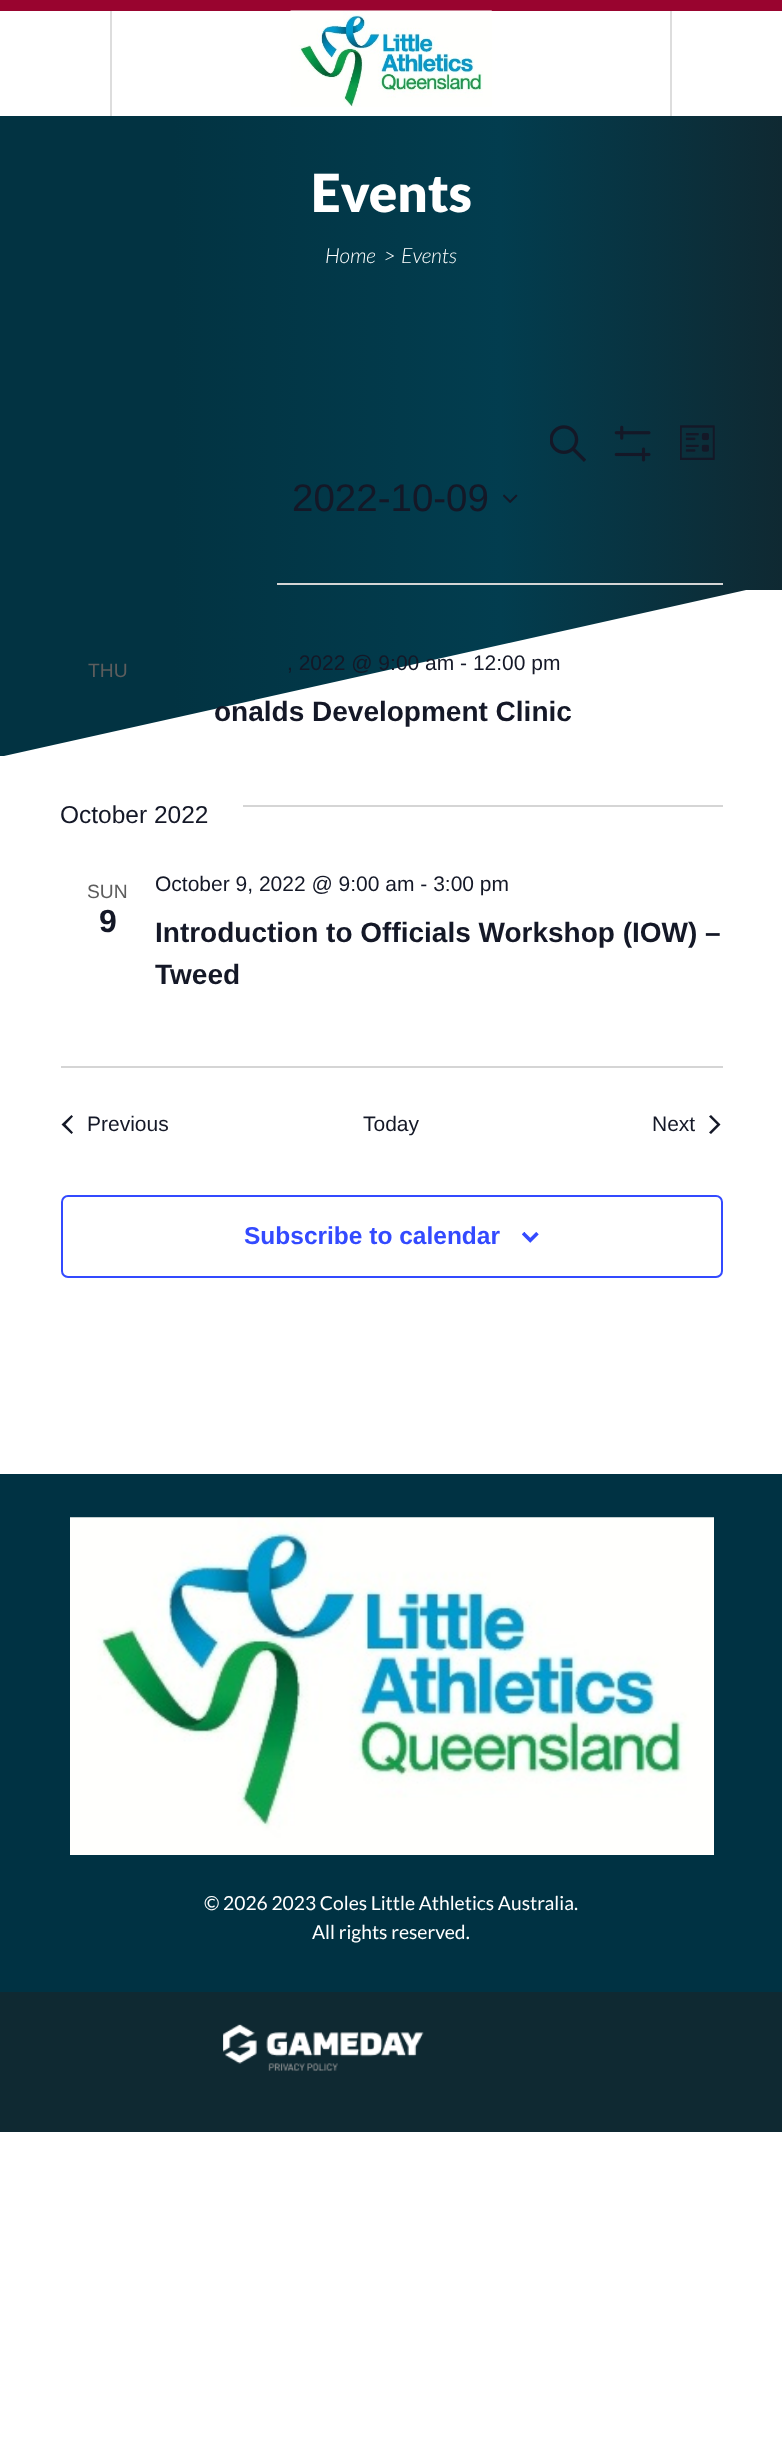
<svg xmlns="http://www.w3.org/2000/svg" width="782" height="2452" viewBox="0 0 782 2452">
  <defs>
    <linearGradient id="g1" gradientUnits="userSpaceOnUse" x1="0" y1="353" x2="782" y2="353"><stop offset="0" stop-color="rgb(2,51,66)"/><stop offset="0.22" stop-color="rgb(2,51,66)"/><stop offset="0.64" stop-color="rgb(2,61,79)"/><stop offset="1" stop-color="rgb(15,41,50)"/></linearGradient>
    <linearGradient id="g2" gradientUnits="userSpaceOnUse" x1="0" y1="669" x2="782" y2="669"><stop offset="0" stop-color="rgb(2,51,66)"/><stop offset="0.22" stop-color="rgb(2,51,66)"/><stop offset="0.64" stop-color="rgb(2,61,79)"/><stop offset="1" stop-color="rgb(15,41,50)"/></linearGradient>
  </defs>
  <rect width="100%" height="100%" fill="rgb(255,255,255)"/>
  <rect x="0" y="0" width="782" height="11" fill="rgb(153,4,47)"/>
  <rect x="110" y="11" width="2" height="105" fill="rgb(221,221,221)"/>
  <image x="290" y="10" width="202" height="97" href="pic1.png"/>
  <rect x="670" y="11" width="2" height="105" fill="rgb(221,221,221)"/>
  <rect x="0" y="116" width="782" height="474" fill="url(#g1)"/>
  <path d="M0 582V756H4L782 582Z" fill="url(#g2)"/>
  <text x="311" y="212" font-family="Lato" font-size="52.5" font-weight="900" fill="rgb(255,255,255)">Events</text>
  <g font-family="Lato" font-size="21" font-weight="300" font-style="italic" fill="rgb(255,255,255)">
    <text x="325" y="263">Home</text>
    <text x="384" y="263">&gt;</text>
    <text x="401" y="263">Events</text>
  </g>
  <image x="550" y="425" width="36" height="37" href="pic2.png"/>
  <image x="614" y="425" width="37" height="37" href="pic3.png"/>
  <image x="680" y="425" width="35" height="35" href="pic4.png"/>
  <text x="292" y="511" font-family="Liberation Sans" font-size="38.5" fill="rgb(20,24,39)">2022-10-09</text>
  <image x="503" y="494" width="15" height="9" href="pic5.png"/>
  <rect x="277" y="583" width="446" height="2" fill="rgb(213,213,213)"/>
  <text x="88" y="677" font-family="Liberation Sans" font-size="19.25" fill="rgb(93,93,93)">THU</text>
  <text x="287" y="670" font-family="Liberation Sans" font-size="21" fill="rgb(20,24,39)">, 2022 @ 9:00 am - 12:00 pm</text>
  <text x="214" y="721" font-family="Liberation Sans" font-size="28" font-weight="bold" fill="rgb(20,24,39)">onalds Development Clinic</text>
  <text x="60" y="823" font-family="Liberation Sans" font-size="24.5" fill="rgb(20,24,39)">October 2022</text>
  <rect x="243" y="805" width="480" height="2" fill="rgb(213,213,213)"/>
  <text x="87" y="898" font-family="Liberation Sans" font-size="19.25" fill="rgb(93,93,93)">SUN</text>
  <text x="99" y="932" font-family="Liberation Sans" font-size="32" font-weight="bold" fill="rgb(20,24,39)">9</text>
  <text x="155" y="891" font-family="Liberation Sans" font-size="21" fill="rgb(20,24,39)">October 9, 2022 @ 9:00 am - 3:00 pm</text>
  <g font-family="Liberation Sans" font-size="28" font-weight="bold" fill="rgb(20,24,39)">
    <text>
      <tspan x="155" y="942">Introduction to Officials Workshop (IOW) –</tspan>
      <tspan x="155" y="984">Tweed</tspan>
    </text>
  </g>
  <rect x="61" y="1066" width="662" height="2" fill="rgb(213,213,213)"/>
  <path d="M73 1132.5L71.5 1134L61.5 1124.5L71.5 1115L73 1116.5L65.5 1124.5Z" fill="rgb(20,24,39)"/>
  <g font-family="Liberation Sans" font-size="21" fill="rgb(20,24,39)">
    <text x="87" y="1131">Previous</text>
    <text x="363" y="1131">Today</text>
    <text x="652" y="1131">Next</text>
  </g>
  <path d="M709 1116.5L711 1115L720.5 1124.5L711 1134L709 1132.5L717 1124.5Z" fill="rgb(20,24,39)"/>
  <rect x="62" y="1196" width="660" height="81" rx="6" fill="none" stroke="rgb(51,74,255)" stroke-width="2"/>
  <text x="244" y="1244" font-family="Liberation Sans" font-size="24.5" font-weight="bold" fill="rgb(51,74,255)">Subscribe to calendar</text>
  <image x="522" y="1232" width="17" height="11" href="pic6.png"/>
  <rect x="0" y="1474" width="782" height="518" fill="rgb(0,50,67)"/>
  <image x="70" y="1517" width="644" height="338" href="pic7.png"/>
  <g font-family="Lato" font-size="19.25" fill="rgb(255,255,255)">
    <text x="204" y="1910">© 2026 2023 Coles Little Athletics Australia.</text>
    <text x="312" y="1939">All rights reserved.</text>
  </g>
  <rect x="0" y="1992" width="782" height="140" fill="rgb(15,41,50)"/>
  <image x="223" y="2024" width="201" height="48" href="pic8.png"/>
</svg>
